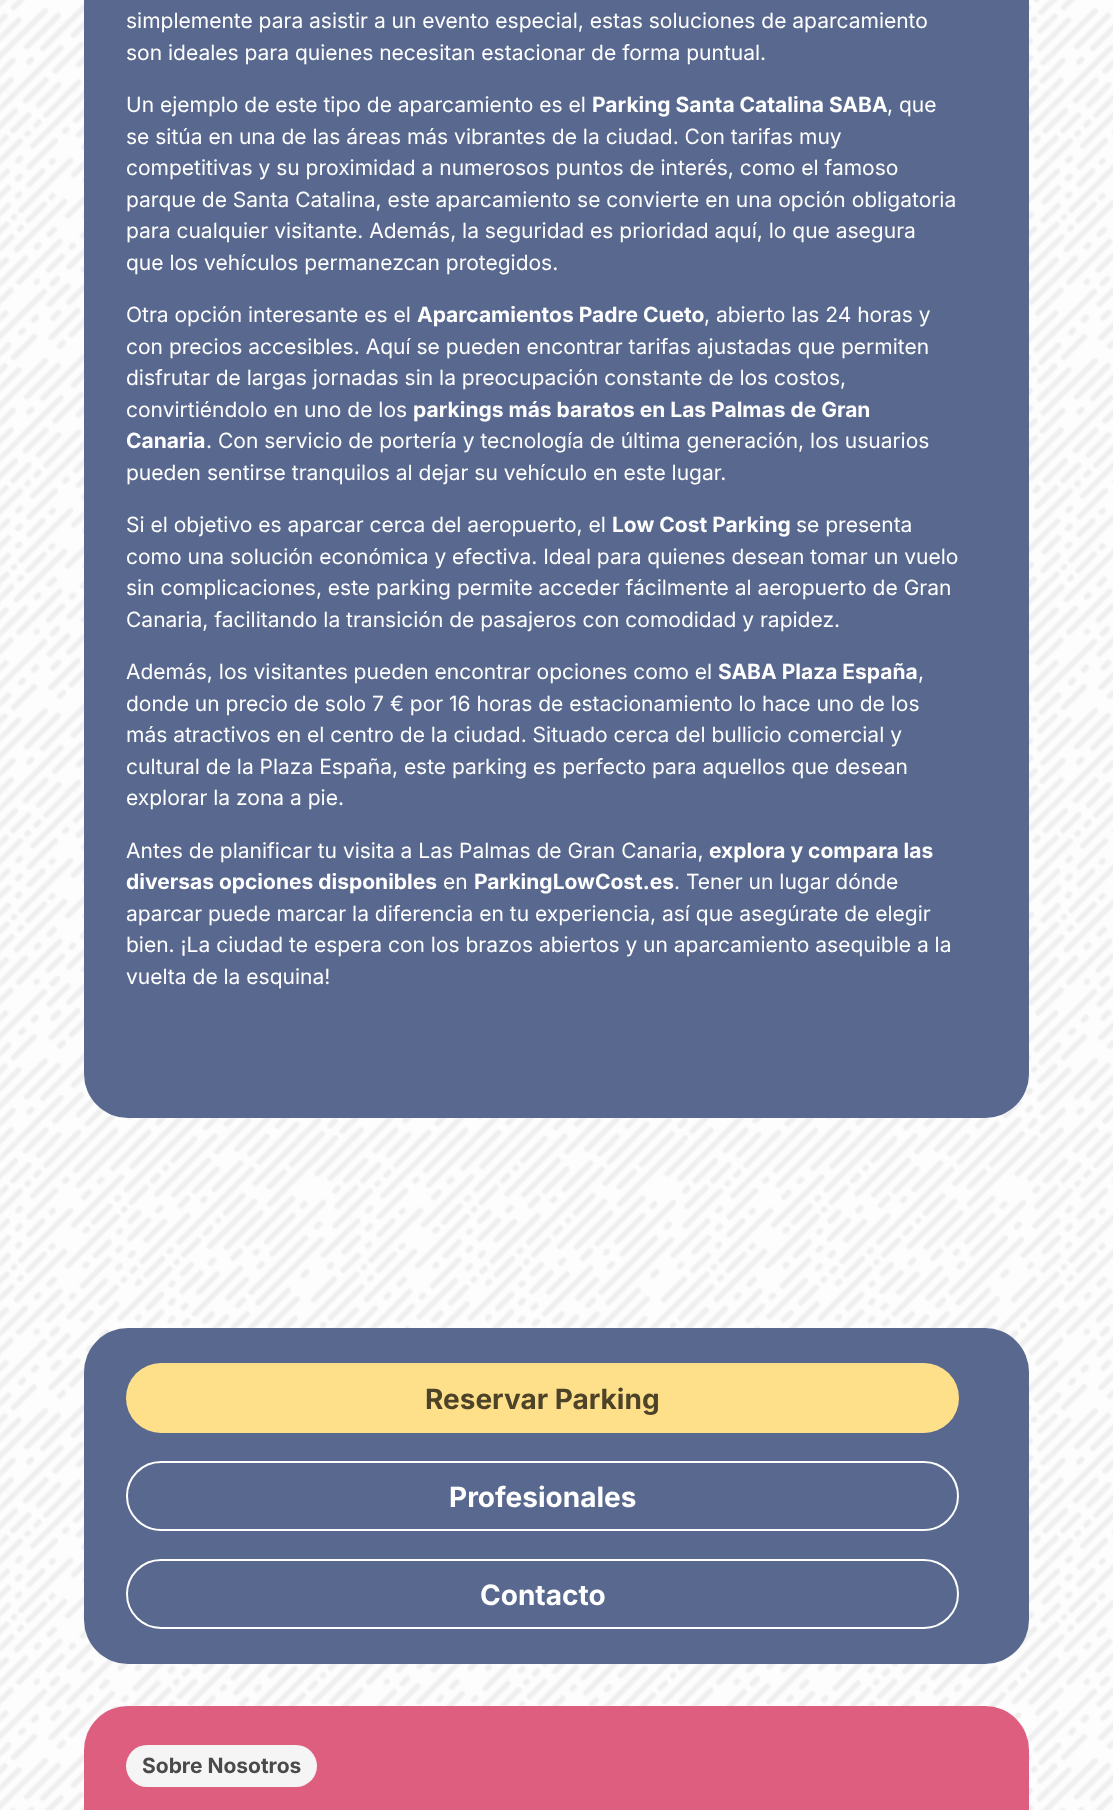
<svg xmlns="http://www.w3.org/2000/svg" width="1113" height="1810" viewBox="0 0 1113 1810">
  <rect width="100%" height="100%" fill="rgb(255,255,255)"/>
  <image x="0" y="0" width="1113" height="1810" href="pic1.png"/>
  <rect x="84" y="-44" width="945" height="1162" rx="44" fill="rgb(88,104,142)"/>
  <g font-family="Inter" font-size="21" fill="rgb(255,255,255)">
    <text>
      <tspan x="126" y="28">simplemente para asistir a un evento especial, estas soluciones de aparcamiento</tspan>
      <tspan x="126" y="60">son ideales para quienes necesitan estacionar de forma puntual.</tspan>
    </text>
    <text x="126" y="112">Un ejemplo de este tipo de aparcamiento es el</text>
  </g>
  <text x="592" y="112" font-family="Inter" font-size="21" font-weight="bold" fill="rgb(255,255,255)">Parking Santa Catalina SABA</text>
  <g font-family="Inter" font-size="21" fill="rgb(255,255,255)">
    <text x="887" y="112">, que</text>
    <text>
      <tspan x="126" y="144">se sitúa en una de las áreas más vibrantes de la ciudad. Con tarifas muy</tspan>
      <tspan x="126" y="175">competitivas y su proximidad a numerosos puntos de interés, como el famoso</tspan>
      <tspan x="126" y="207">parque de Santa Catalina, este aparcamiento se convierte en una opción obligatoria</tspan>
      <tspan x="126" y="238">para cualquier visitante. Además, la seguridad es prioridad aquí, lo que asegura</tspan>
      <tspan x="126" y="270">que los vehículos permanezcan protegidos.</tspan>
    </text>
    <text x="126" y="322">Otra opción interesante es el</text>
  </g>
  <text x="417" y="322" font-family="Inter" font-size="21" font-weight="bold" fill="rgb(255,255,255)">Aparcamientos Padre Cueto</text>
  <g font-family="Inter" font-size="21" fill="rgb(255,255,255)">
    <text x="704" y="322">, abierto las 24 horas y</text>
    <text>
      <tspan x="126" y="354">con precios accesibles. Aquí se pueden encontrar tarifas ajustadas que permiten</tspan>
      <tspan x="126" y="385">disfrutar de largas jornadas sin la preocupación constante de los costos,</tspan>
      <tspan x="126" y="417">convirtiéndolo en uno de los</tspan>
    </text>
  </g>
  <g font-family="Inter" font-size="21" font-weight="bold" fill="rgb(255,255,255)">
    <text x="413" y="417">parkings más baratos en Las Palmas de Gran</text>
    <text x="126" y="448">Canaria</text>
  </g>
  <g font-family="Inter" font-size="21" fill="rgb(255,255,255)">
    <text x="206" y="448">. Con servicio de portería y tecnología de última generación, los usuarios</text>
    <text x="126" y="480">pueden sentirse tranquilos al dejar su vehículo en este lugar.</text>
    <text x="126" y="532">Si el objetivo es aparcar cerca del aeropuerto, el</text>
  </g>
  <text x="612" y="532" font-family="Inter" font-size="21" font-weight="bold" fill="rgb(255,255,255)">Low Cost Parking</text>
  <g font-family="Inter" font-size="21" fill="rgb(255,255,255)">
    <text x="796" y="532">se presenta</text>
    <text>
      <tspan x="126" y="564">como una solución económica y efectiva. Ideal para quienes desean tomar un vuelo</tspan>
      <tspan x="126" y="595">sin complicaciones, este parking permite acceder fácilmente al aeropuerto de Gran</tspan>
      <tspan x="126" y="627">Canaria, facilitando la transición de pasajeros con comodidad y rapidez.</tspan>
    </text>
    <text x="126" y="679">Además, los visitantes pueden encontrar opciones como el</text>
  </g>
  <text x="718" y="679" font-family="Inter" font-size="21" font-weight="bold" fill="rgb(255,255,255)">SABA Plaza España</text>
  <g font-family="Inter" font-size="21" fill="rgb(255,255,255)">
    <text x="918" y="679">,</text>
    <text>
      <tspan x="126" y="711">donde un precio de solo 7 € por 16 horas de estacionamiento lo hace uno de los</tspan>
      <tspan x="126" y="742">más atractivos en el centro de la ciudad. Situado cerca del bullicio comercial y</tspan>
      <tspan x="126" y="774">cultural de la Plaza España, este parking es perfecto para aquellos que desean</tspan>
      <tspan x="126" y="805">explorar la zona a pie.</tspan>
    </text>
    <text x="126" y="858">Antes de planificar tu visita a Las Palmas de Gran Canaria,</text>
  </g>
  <g font-family="Inter" font-size="21" font-weight="bold" fill="rgb(255,255,255)">
    <text x="709" y="858">explora y compara las</text>
    <text x="126" y="889">diversas opciones disponibles</text>
  </g>
  <text x="443" y="889" font-family="Inter" font-size="21" fill="rgb(255,255,255)">en</text>
  <text x="474" y="889" font-family="Inter" font-size="21" font-weight="bold" fill="rgb(255,255,255)">ParkingLowCost.es</text>
  <g font-family="Inter" font-size="21" fill="rgb(255,255,255)">
    <text x="674" y="889">. Tener un lugar dónde</text>
    <text>
      <tspan x="126" y="921">aparcar puede marcar la diferencia en tu experiencia, así que asegúrate de elegir</tspan>
      <tspan x="126" y="952">bien. ¡La ciudad te espera con los brazos abiertos y un aparcamiento asequible a la</tspan>
      <tspan x="126" y="984">vuelta de la esquina!</tspan>
    </text>
  </g>
  <rect x="84" y="1328" width="945" height="336" rx="44" fill="rgb(88,104,142)"/>
  <rect x="126" y="1363" width="833" height="70" rx="35" fill="rgb(255,224,138)"/>
  <text x="425" y="1409" font-family="Inter" font-size="28" font-weight="bold" fill="rgb(77,67,41)">Reservar Parking</text>
  <rect x="127" y="1462" width="831" height="68" rx="34" fill="none" stroke="rgb(255,255,255)" stroke-width="2"/>
  <text x="449" y="1507" font-family="Inter" font-size="28" font-weight="bold" fill="rgb(255,255,255)">Profesionales</text>
  <rect x="127" y="1560" width="831" height="68" rx="34" fill="none" stroke="rgb(255,255,255)" stroke-width="2"/>
  <text x="480" y="1605" font-family="Inter" font-size="28" font-weight="bold" fill="rgb(255,255,255)">Contacto</text>
  <rect x="84" y="1706" width="945" height="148" rx="44" fill="rgb(222,94,127)"/>
  <rect x="126" y="1745" width="191" height="42" rx="21" fill="rgb(245,245,245)"/>
  <text x="142" y="1773" font-family="Inter" font-size="21" font-weight="bold" fill="rgb(74,74,74)">Sobre Nosotros</text>
</svg>
